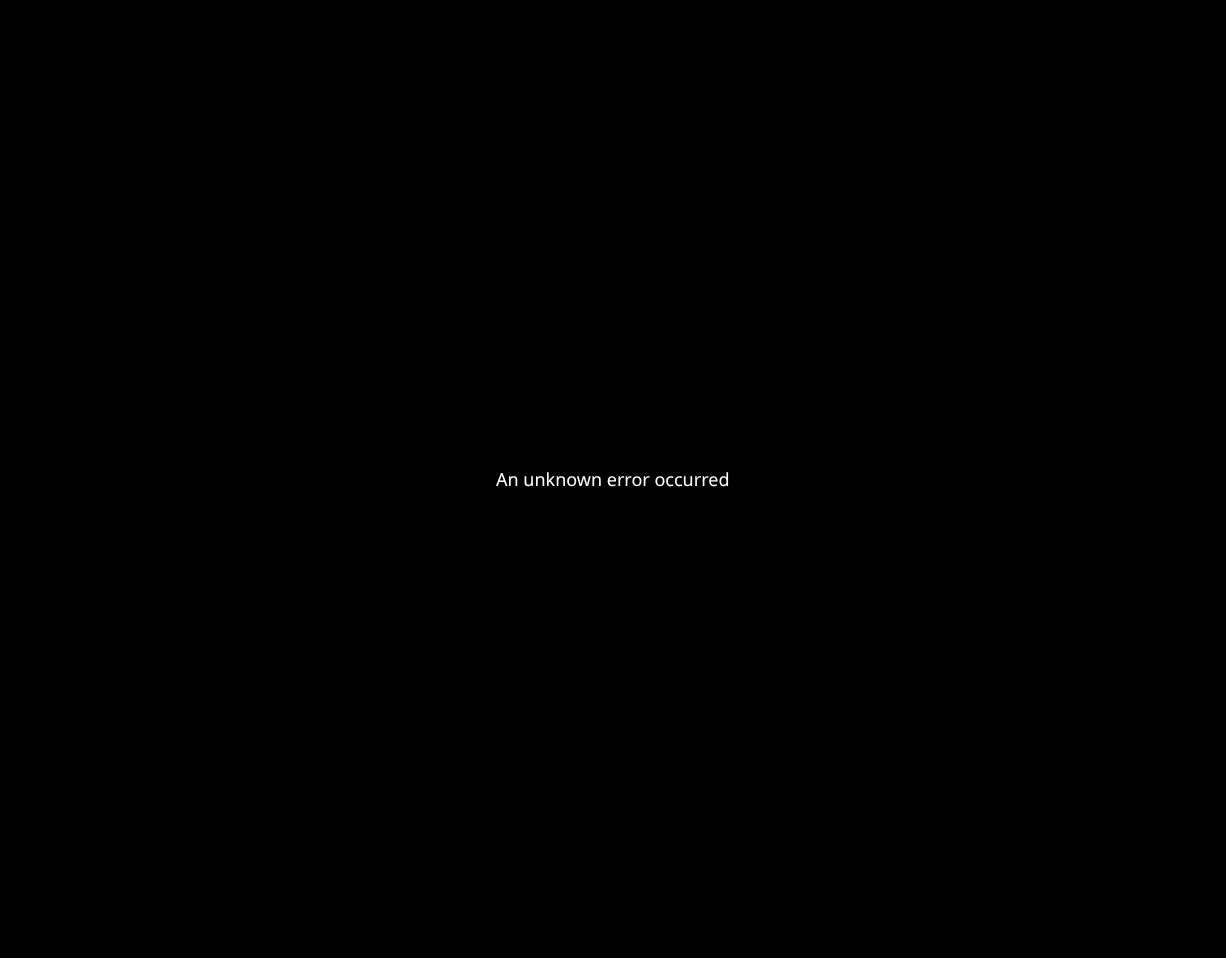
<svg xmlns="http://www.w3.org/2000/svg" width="1226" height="958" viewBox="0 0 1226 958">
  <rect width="100%" height="100%" fill="rgb(0,0,0)"/>
  <text x="496" y="486" font-family="Noto Sans" font-size="18" fill="rgb(255,255,255)">An unknown error occurred</text>
</svg>
